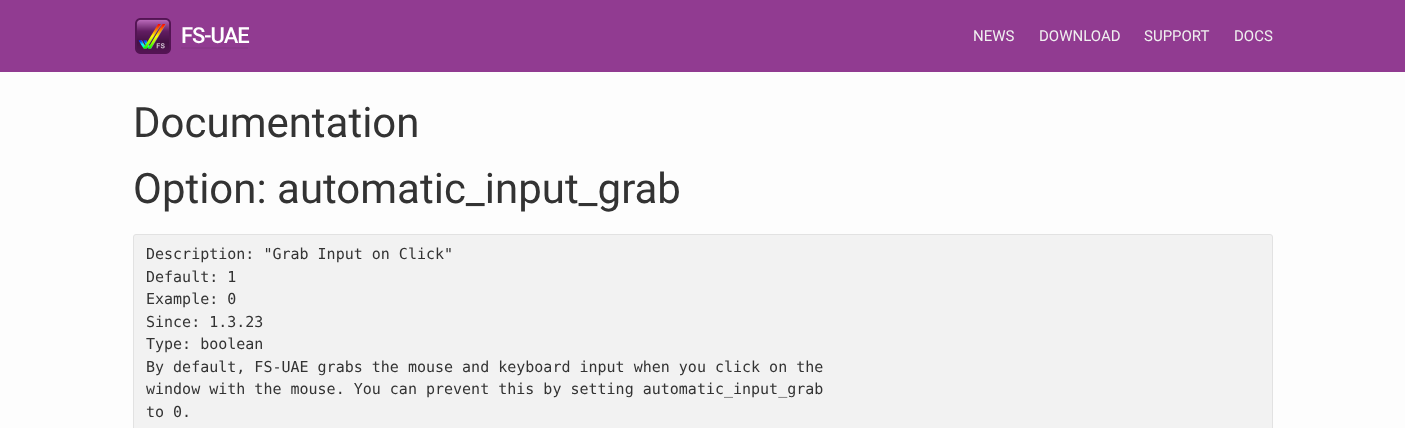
<svg xmlns="http://www.w3.org/2000/svg" width="1405" height="428" viewBox="0 0 1405 428">
  <rect width="100%" height="100%" fill="rgb(253,253,253)"/>
  <rect x="0" y="0" width="1405" height="72" fill="rgb(145,59,145)"/>
  <image x="135" y="18" width="36" height="36" href="pic1.png"/>
  <text x="181" y="43" font-family="Roboto" font-size="22" font-weight="500" letter-spacing="-1" fill="rgb(255,255,255)">FS-UAE</text>
  <rect x="181" y="47" width="67" height="2" fill="rgb(138,57,138)"/>
  <g font-family="Roboto" font-size="15" fill="rgb(240,240,240)">
    <text x="973" y="41">NEWS</text>
    <text x="1039" y="41">DOWNLOAD</text>
    <text x="1144" y="41">SUPPORT</text>
    <text x="1234" y="41">DOCS</text>
  </g>
  <g font-family="Roboto" font-size="42" fill="rgb(51,51,51)">
    <text>
      <tspan x="133" y="137">Documentation</tspan>
      <tspan x="133" y="203">Option: automatic_input_grab</tspan>
    </text>
  </g>
  <rect x="133.5" y="234.5" width="1139" height="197" rx="2.5" fill="rgb(242,242,242)" stroke="rgb(226,226,226)"/>
  <g font-family="DejaVu Sans Mono" font-size="15" fill="rgb(51,51,51)">
    <text>
      <tspan x="146" y="259">Description: "Grab Input on Click"</tspan>
      <tspan x="146" y="282">Default: 1</tspan>
      <tspan x="146" y="304">Example: 0</tspan>
      <tspan x="146" y="327">Since: 1.3.23</tspan>
      <tspan x="146" y="349">Type: boolean</tspan>
      <tspan x="146" y="372">By default, FS-UAE grabs the mouse and keyboard input when you click on the</tspan>
      <tspan x="146" y="394">window with the mouse. You can prevent this by setting automatic_input_grab</tspan>
      <tspan x="146" y="417">to 0.</tspan>
    </text>
  </g>
</svg>
